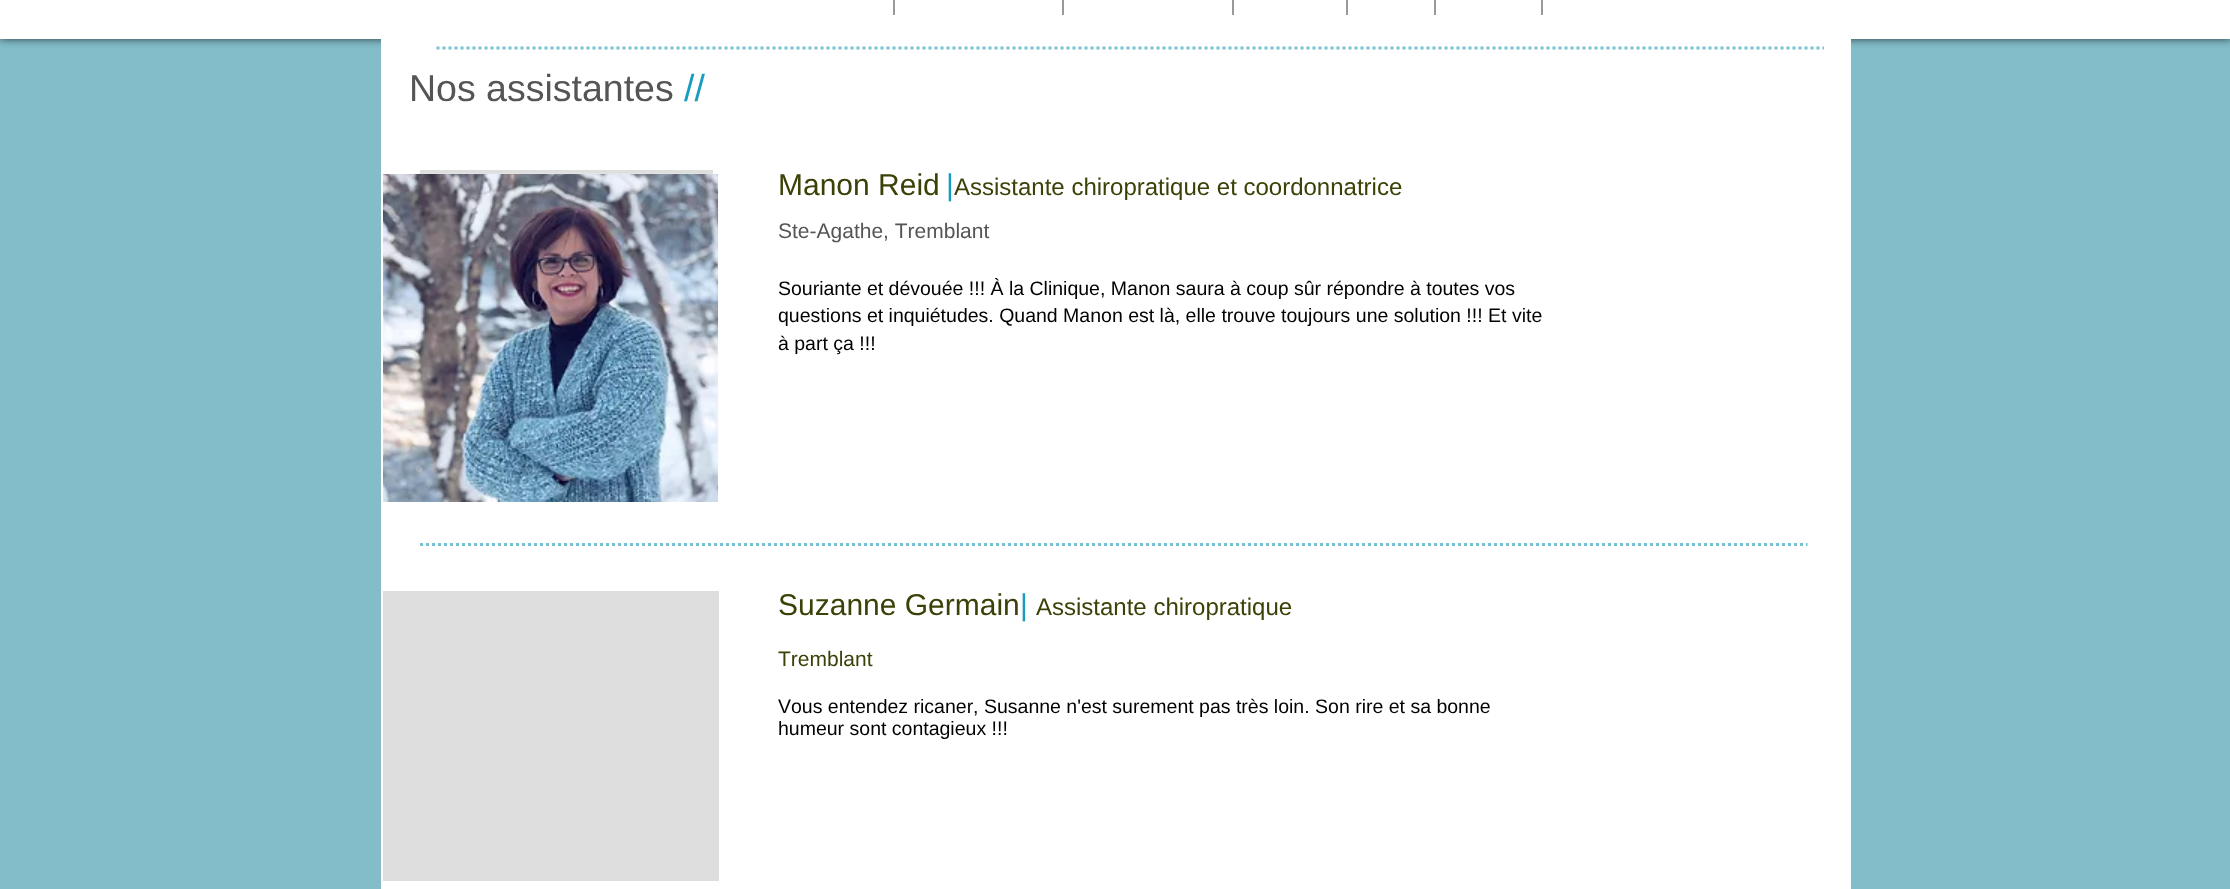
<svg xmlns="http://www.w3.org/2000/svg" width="2230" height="889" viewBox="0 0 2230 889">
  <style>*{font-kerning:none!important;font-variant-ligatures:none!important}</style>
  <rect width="100%" height="100%" fill="rgb(130,189,201)"/>
  <rect x="0" y="-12" width="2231" height="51" fill="rgba(0,0,0,0.7)" filter="blur(4px)"/>
  <rect x="0" y="0" width="2230" height="39" fill="rgb(255,255,255)"/>
  <rect x="893" y="0" width="2" height="15" fill="rgb(153,153,153)"/>
  <rect x="1062" y="0" width="2" height="15" fill="rgb(153,153,153)"/>
  <rect x="1232" y="0" width="2" height="15" fill="rgb(153,153,153)"/>
  <rect x="1346" y="0" width="2" height="15" fill="rgb(153,153,153)"/>
  <rect x="1434" y="0" width="2" height="15" fill="rgb(153,153,153)"/>
  <rect x="1541" y="0" width="2" height="15" fill="rgb(153,153,153)"/>
  <rect x="381" y="39" width="1470" height="850" fill="rgb(255,255,255)"/>
  <path d="M436.5 48H1824" fill="none" stroke="rgb(119,193,213)" stroke-width="3" stroke-dasharray="3 3"/>
  <text x="409" y="101" font-family="Liberation Sans" font-size="37.5" fill="rgb(85,85,85)">Nos assistantes</text>
  <text x="684" y="101" font-family="Liberation Sans" font-size="37.5" fill="rgb(22,156,192)">//</text>
  <rect x="420" y="170" width="293" height="4" fill="rgb(222,222,222)"/>
  <image x="424" y="173" width="293" height="1" href="pic1.png"/>
  <image x="383" y="174" width="336" height="328" href="pic2.png"/>
  <text x="778" y="195" font-family="Liberation Sans" font-size="30" fill="rgb(60,65,7)">Manon Reid</text>
  <text x="946" y="195" font-family="Liberation Sans" font-size="30" fill="rgb(22,156,192)">|</text>
  <text x="954" y="195" font-family="Liberation Sans" font-size="24" fill="rgb(60,65,7)">Assistante chiropratique et coordonnatrice</text>
  <text x="778" y="238" font-family="Liberation Sans" font-size="21" fill="rgb(85,85,85)">Ste-Agathe, Tremblant</text>
  <g font-family="Liberation Sans" font-size="19.5" fill="rgb(0,0,0)">
    <text>
      <tspan x="778" y="295">Souriante et dévouée !!! À la Clinique, Manon saura à coup sûr répondre à toutes vos</tspan>
      <tspan x="778" y="322">questions et inquiétudes. Quand Manon est là, elle trouve toujours une solution !!! Et vite</tspan>
      <tspan x="778" y="350">à part ça !!!</tspan>
    </text>
  </g>
  <path d="M420 544.5H1807.5" fill="none" stroke="rgb(119,193,213)" stroke-width="3" stroke-dasharray="3 3"/>
  <rect x="383" y="591" width="336" height="290" fill="rgb(222,222,222)"/>
  <text x="778" y="615" font-family="Liberation Sans" font-size="30" fill="rgb(60,65,7)">Suzanne Germain</text>
  <text x="1020" y="615" font-family="Liberation Sans" font-size="30" fill="rgb(22,156,192)">|</text>
  <text x="1036" y="615" font-family="Liberation Sans" font-size="24" fill="rgb(60,65,7)">Assistante chiropratique</text>
  <text x="778" y="666" font-family="Liberation Sans" font-size="21" fill="rgb(60,65,7)">Tremblant</text>
  <g font-family="Liberation Sans" font-size="19.5" fill="rgb(0,0,0)">
    <text>
      <tspan x="778" y="713">Vous entendez ricaner, Susanne n'est surement pas très loin. Son rire et sa bonne</tspan>
      <tspan x="778" y="735">humeur sont contagieux !!!</tspan>
    </text>
  </g>
</svg>
